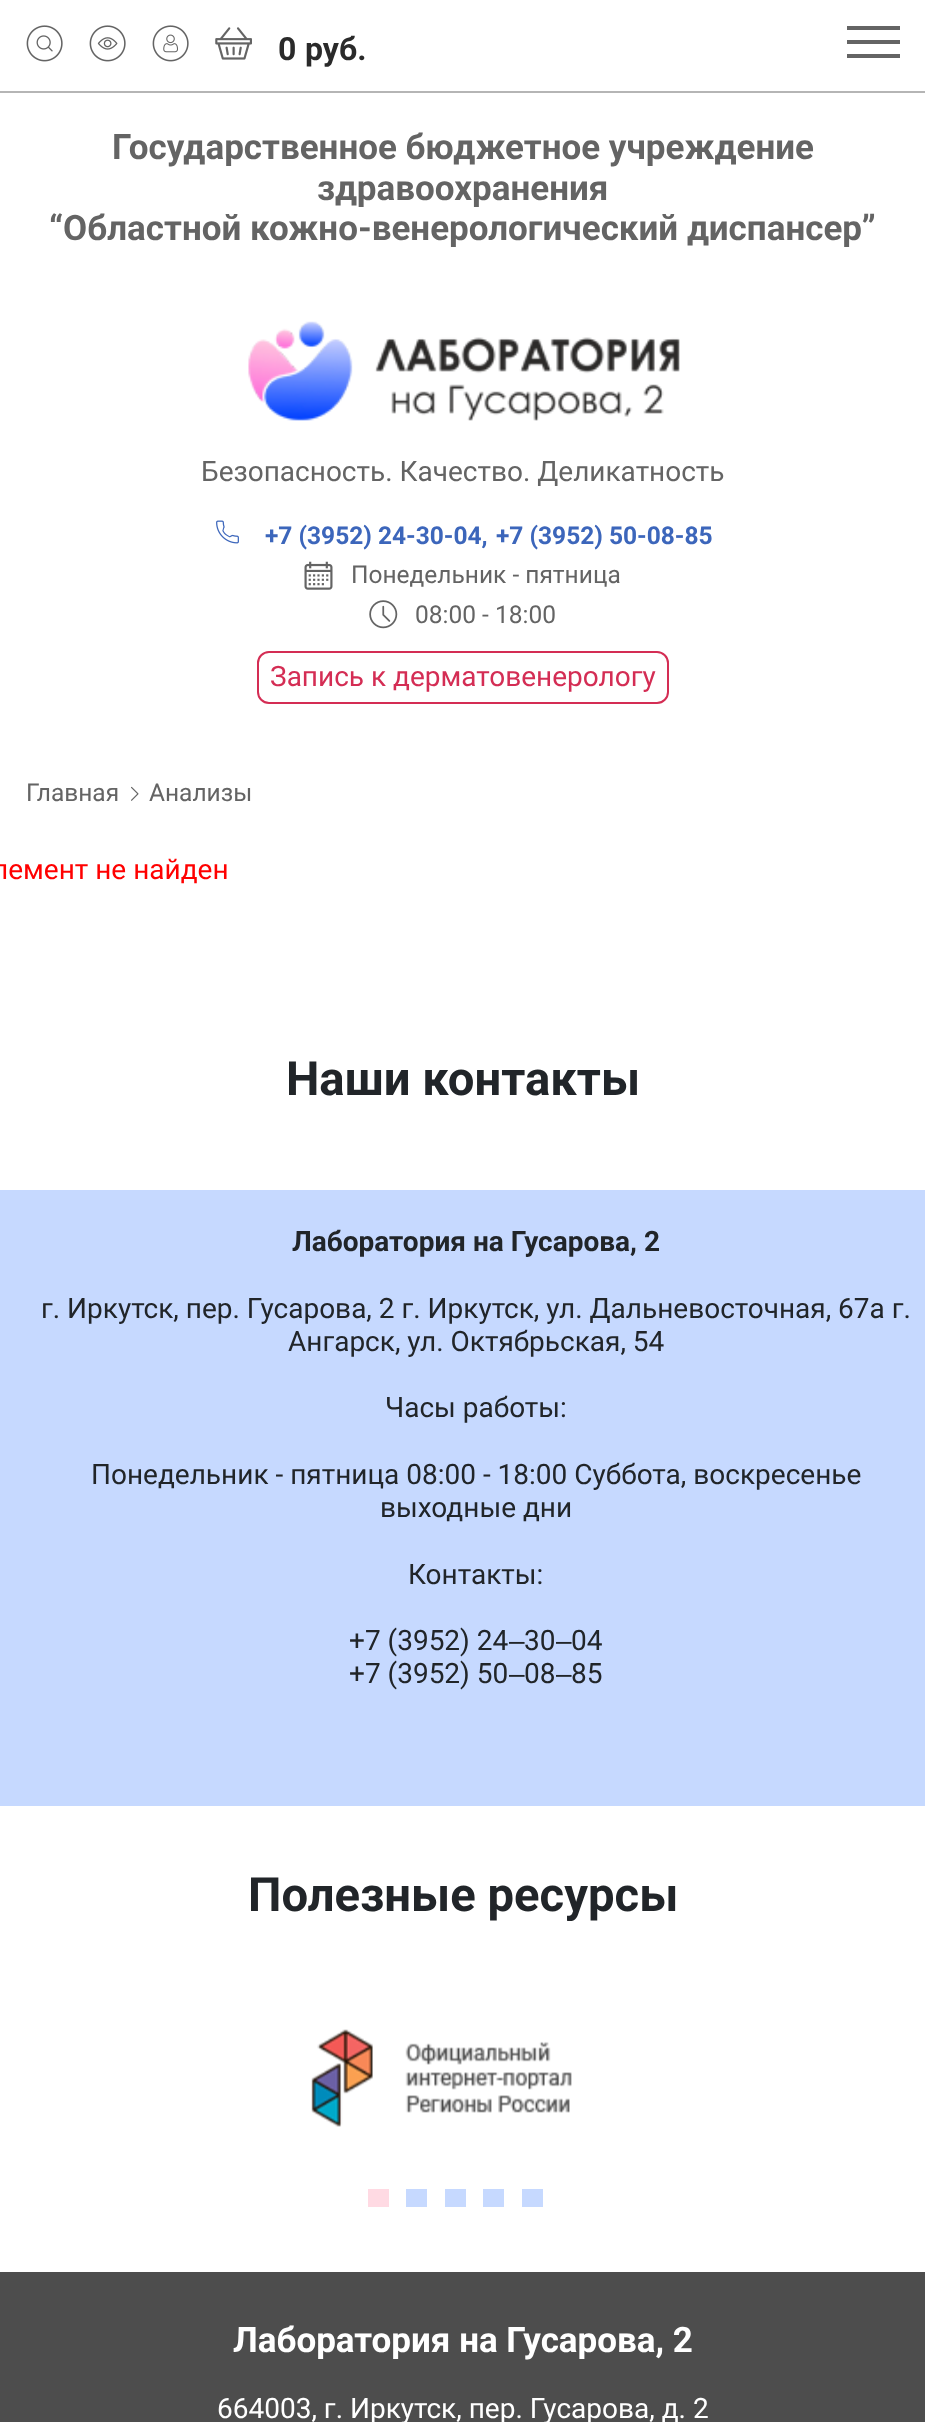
<svg xmlns="http://www.w3.org/2000/svg" width="925" height="2422" viewBox="0 0 925 2422">
  <rect width="100%" height="100%" fill="rgb(255,255,255)"/>
  <rect x="0" y="91" width="925" height="2" fill="rgb(181,181,181)"/>
  <image x="26" y="25" width="37" height="37" href="pic1.png"/>
  <image x="89" y="25" width="37" height="37" href="pic2.png"/>
  <image x="152" y="25" width="37" height="37" href="pic3.png"/>
  <image x="215" y="27" width="37" height="33" href="pic4.png"/>
  <g font-family="Roboto" font-size="32" font-weight="bold" fill="rgb(42,42,42)">
    <text x="278" y="60">0</text>
    <text x="305" y="60">руб.</text>
  </g>
  <rect x="847" y="26" width="53" height="4" fill="rgb(100,100,100)"/>
  <rect x="847" y="40" width="53" height="4" fill="rgb(100,100,100)"/>
  <rect x="847" y="54" width="53" height="4" fill="rgb(100,100,100)"/>
  <g font-family="Roboto" font-size="35" font-weight="bold" fill="rgb(100,100,100)">
    <text x="112" y="159">Государственное бюджетное учреждение</text>
    <text x="317" y="200">здравоохранения</text>
    <text x="49" y="240">“Областной кожно-венерологический диспансер”</text>
  </g>
  <image x="248" y="321" width="432" height="100" href="pic5.png"/>
  <text x="201" y="481" font-family="Roboto" font-size="28" fill="rgb(100,100,100)">Безопасность. Качество. Деликатность</text>
  <image x="216" y="520" width="23" height="24" href="pic6.png"/>
  <g font-family="Roboto" font-size="24.5" font-weight="bold" fill="rgb(60,102,187)">
    <text x="265" y="544">+7 (3952) 24-30-04,</text>
    <text x="496" y="544">+7 (3952) 50-08-85</text>
  </g>
  <image x="304" y="561" width="29" height="29" href="pic7.png"/>
  <text x="351" y="583" font-family="Roboto" font-size="24.5" fill="rgb(100,100,100)">Понедельник - пятница</text>
  <image x="369" y="600" width="29" height="29" href="pic8.png"/>
  <text x="415" y="623" font-family="Roboto" font-size="24.5" fill="rgb(100,100,100)">08:00 - 18:00</text>
  <rect x="258" y="652" width="410" height="51" rx="11" fill="none" stroke="rgb(212,45,84)" stroke-width="2"/>
  <text x="270" y="686" font-family="Roboto" font-size="28" fill="rgb(212,45,84)">Запись к дерматовенерологу</text>
  <text x="26" y="801" font-family="Roboto" font-size="24.5" fill="rgb(100,100,100)">Главная</text>
  <image x="131" y="786" width="8" height="15" href="pic9.png"/>
  <text x="149" y="801" font-family="Roboto" font-size="24.5" fill="rgb(100,100,100)">Анализы</text>
  <text x="-8" y="879" font-family="Roboto" font-size="28" fill="rgb(255,0,0)">лемент не найден</text>
  <text x="286" y="1095" font-family="Roboto" font-size="47.25" font-weight="bold" fill="rgb(33,37,41)">Наши контакты</text>
  <rect x="0" y="1190" width="925" height="616" fill="rgb(198,217,255)"/>
  <text x="292" y="1251" font-family="Roboto" font-size="28" font-weight="bold" fill="rgb(33,37,41)">Лаборатория на Гусарова, 2</text>
  <g font-family="Roboto" font-size="28" fill="rgb(33,37,41)">
    <text x="41" y="1318">г. Иркутск, пер. Гусарова, 2 г. Иркутск, ул. Дальневосточная, 67а г.</text>
    <text x="288" y="1351">Ангарск, ул. Октябрьская, 54</text>
    <text x="385" y="1417">Часы работы:</text>
    <text x="91" y="1484">Понедельник - пятница 08:00 - 18:00 Суббота, воскресенье</text>
    <text x="380" y="1517">выходные дни</text>
    <text x="408" y="1584">Контакты:</text>
    <text x="349" y="1650">+7 (3952) 24</text>
  </g>
  <text x="509" y="1650" font-family="Liberation Sans" font-size="28" fill="rgb(33,37,41)">‒</text>
  <text x="524" y="1650" font-family="Roboto" font-size="28" fill="rgb(33,37,41)">30</text>
  <text x="556" y="1650" font-family="Liberation Sans" font-size="28" fill="rgb(33,37,41)">‒</text>
  <g font-family="Roboto" font-size="28" fill="rgb(33,37,41)">
    <text x="571" y="1650">04</text>
    <text x="349" y="1683">+7 (3952) 50</text>
  </g>
  <text x="509" y="1683" font-family="Liberation Sans" font-size="28" fill="rgb(33,37,41)">‒</text>
  <text x="524" y="1683" font-family="Roboto" font-size="28" fill="rgb(33,37,41)">08</text>
  <text x="556" y="1683" font-family="Liberation Sans" font-size="28" fill="rgb(33,37,41)">‒</text>
  <text x="571" y="1683" font-family="Roboto" font-size="28" fill="rgb(33,37,41)">85</text>
  <text x="248" y="1911" font-family="Roboto" font-size="47.25" font-weight="bold" fill="rgb(33,37,41)">Полезные ресурсы</text>
  <image x="311" y="2029" width="261" height="98" href="pic10.png"/>
  <rect x="368" y="2189" width="21" height="18" fill="rgb(255,218,227)"/>
  <rect x="406" y="2189" width="21" height="18" fill="rgb(198,217,255)"/>
  <rect x="445" y="2189" width="21" height="18" fill="rgb(198,217,255)"/>
  <rect x="483" y="2189" width="21" height="18" fill="rgb(198,217,255)"/>
  <rect x="522" y="2189" width="21" height="18" fill="rgb(198,217,255)"/>
  <rect x="0" y="2272" width="925" height="150" fill="rgb(77,77,77)"/>
  <text x="233" y="2352" font-family="Roboto" font-size="35" font-weight="bold" fill="rgb(255,255,255)">Лаборатория на Гусарова, 2</text>
  <text x="217" y="2418" font-family="Roboto" font-size="28" fill="rgb(255,255,255)">664003, г. Иркутск, пер. Гусарова, д. 2</text>
</svg>
